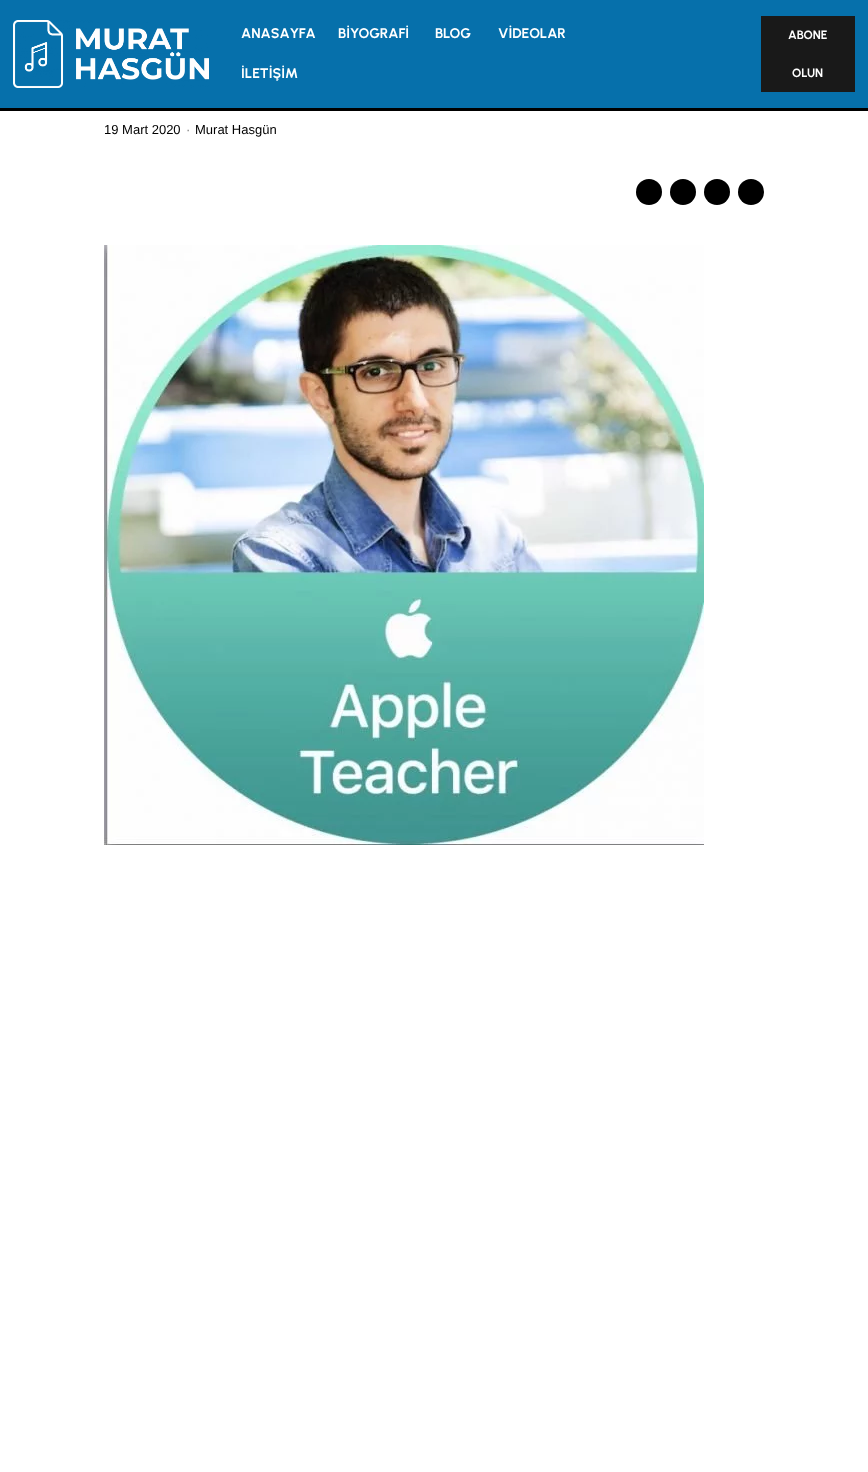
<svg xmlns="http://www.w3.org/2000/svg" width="868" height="1472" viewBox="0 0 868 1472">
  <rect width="100%" height="100%" fill="rgb(255,255,255)"/>
  <rect x="0" y="0" width="868" height="108" fill="rgb(6,112,171)"/>
  <rect x="0" y="108" width="868" height="3" fill="rgb(0,0,0)"/>
  <image x="13" y="20" width="196" height="68" href="pic1.png"/>
  <g font-family="Urbanist" font-size="14" font-weight="bold" fill="rgb(255,255,255)">
    <text x="241" y="38">ANASAYFA</text>
    <text x="338" y="38">BİYOGRAFİ</text>
    <text x="435" y="38">BLOG</text>
    <text x="498" y="38">VİDEOLAR</text>
    <text x="241" y="78">İLETİŞİM</text>
  </g>
  <rect x="761" y="16" width="94" height="76" fill="rgb(25,25,25)"/>
  <g font-family="Urbanist" font-size="12" font-weight="bold" fill="rgb(255,255,255)">
    <text x="788" y="39">ABONE</text>
    <text x="792" y="77">OLUN</text>
  </g>
  <text x="104" y="134" font-family="Liberation Sans" font-size="13" fill="rgb(0,0,0)">19 Mart 2020</text>
  <text x="186" y="134" font-family="Liberation Sans" font-size="13" fill="rgb(128,128,128)">·</text>
  <text x="195" y="134" font-family="Liberation Sans" font-size="13" fill="rgb(0,0,0)">Murat Hasgün</text>
  <circle cx="649" cy="192" r="13" fill="rgb(0,0,0)"/>
  <circle cx="683" cy="192" r="13" fill="rgb(0,0,0)"/>
  <circle cx="717" cy="192" r="13" fill="rgb(0,0,0)"/>
  <circle cx="751" cy="192" r="13" fill="rgb(0,0,0)"/>
  <image x="104" y="245" width="600" height="600" href="pic2.png"/>
</svg>
